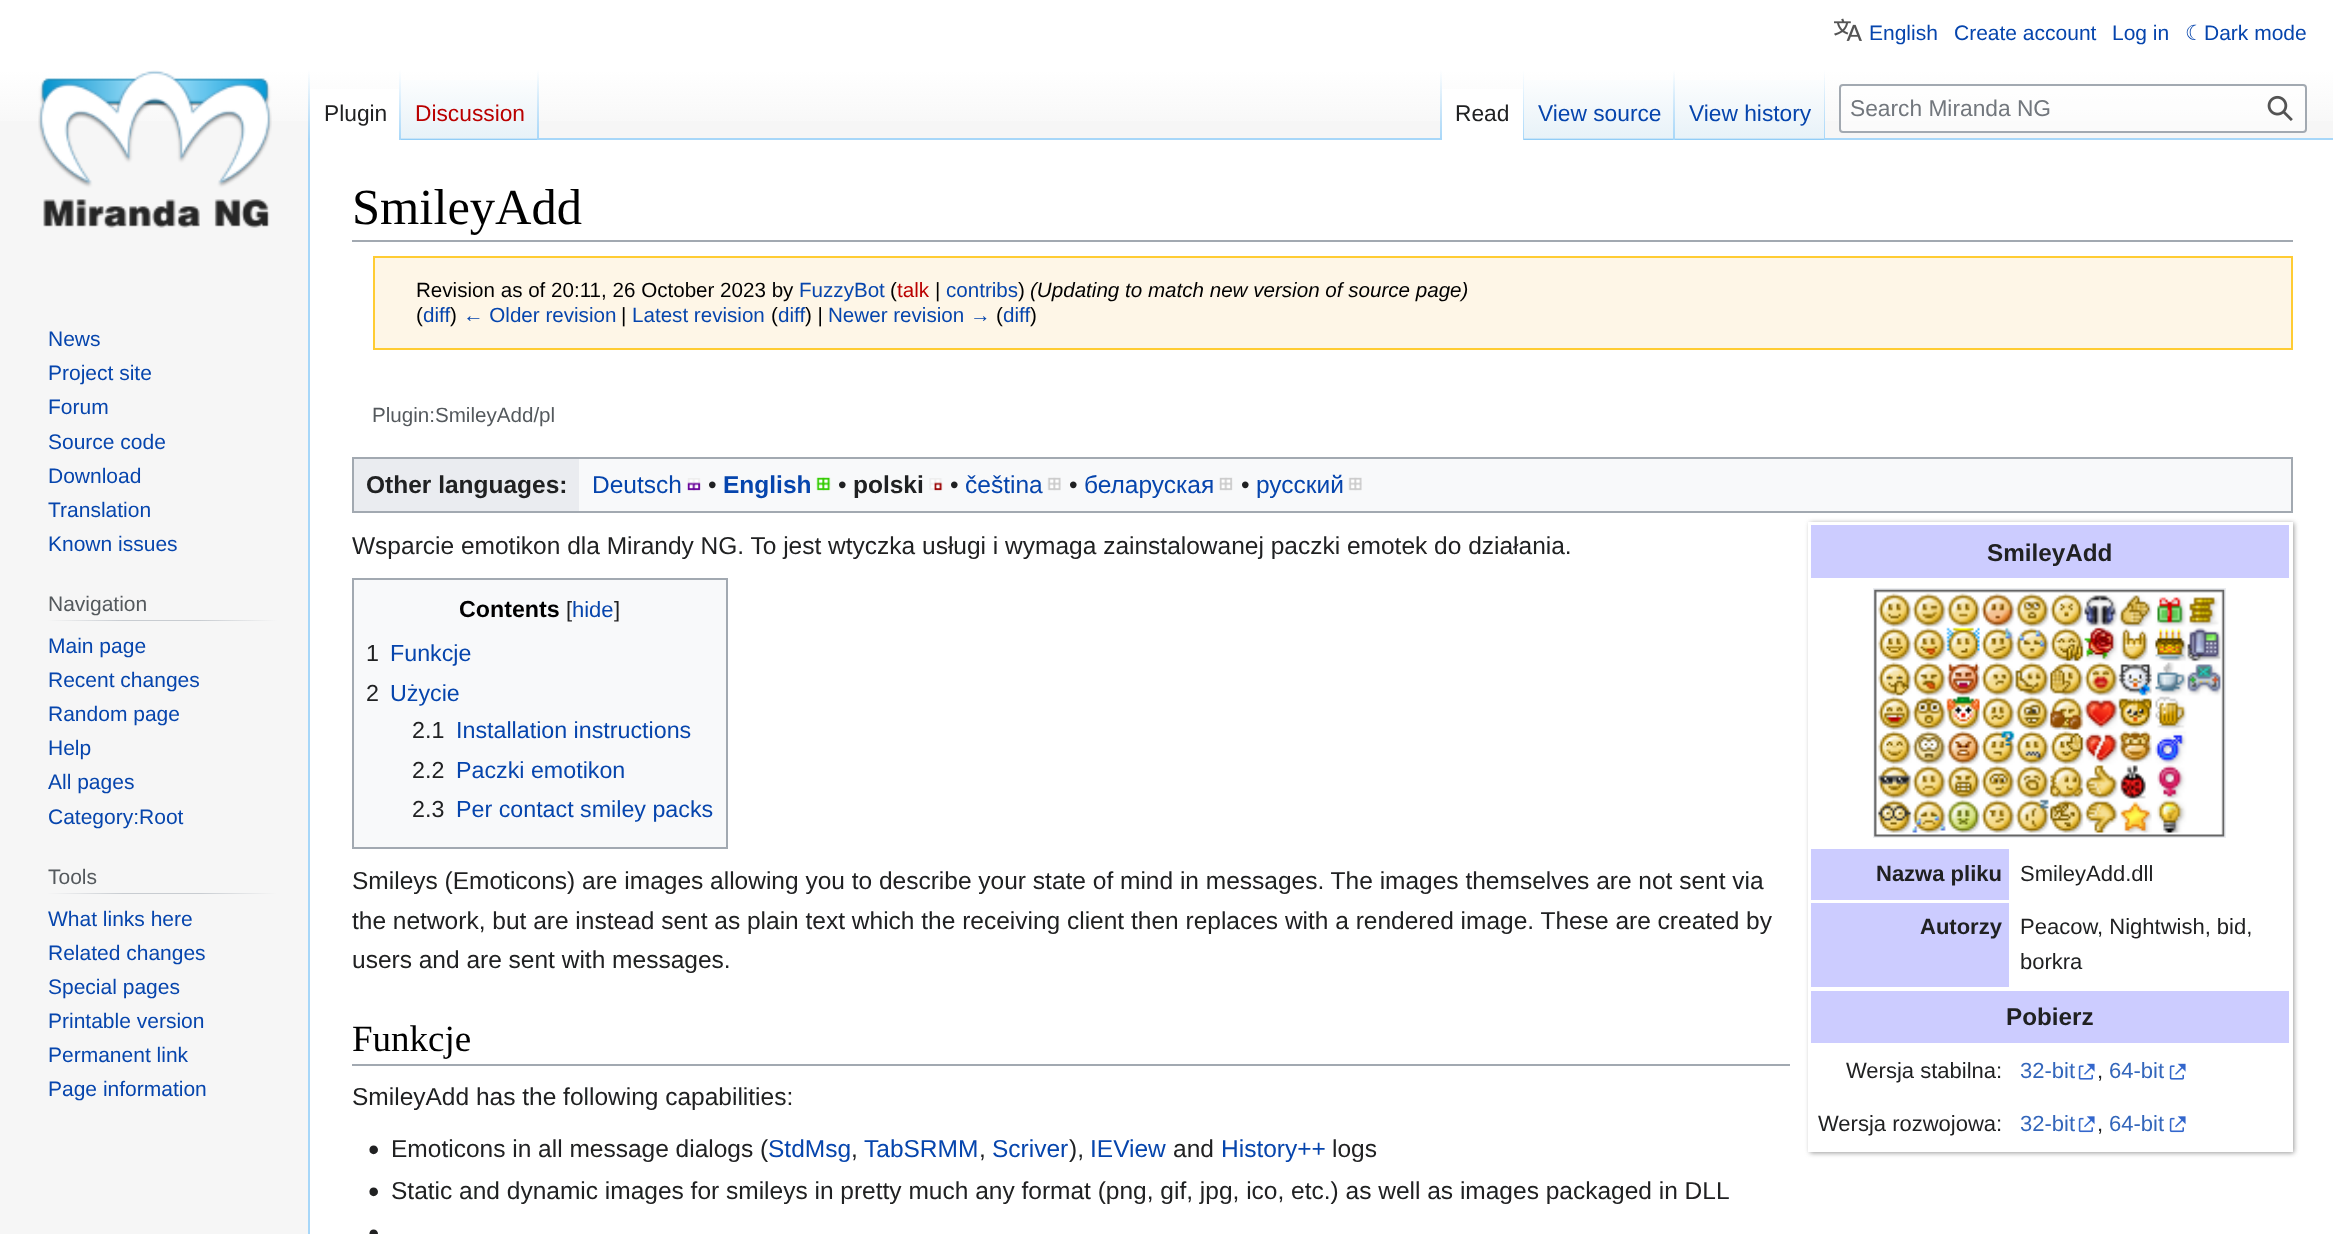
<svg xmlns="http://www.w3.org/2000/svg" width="2333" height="1234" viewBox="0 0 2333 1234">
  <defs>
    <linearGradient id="g1" gradientUnits="userSpaceOnUse" x1="1167" y1="0" x2="1167" y2="140"><stop offset="0.5" stop-color="rgb(255,255,255)"/><stop offset="1" stop-color="rgb(246,246,246)"/></linearGradient>
    <linearGradient id="g2" gradientUnits="userSpaceOnUse" x1="309" y1="70" x2="309" y2="140"><stop offset="0" stop-color="rgb(167,215,249)" stop-opacity="0"/><stop offset="1" stop-color="rgb(167,215,249)"/></linearGradient>
    <linearGradient id="g3" gradientUnits="userSpaceOnUse" x1="400" y1="70" x2="400" y2="140"><stop offset="0" stop-color="rgb(255,255,255)"/><stop offset="1" stop-color="rgb(167,215,249)"/></linearGradient>
    <linearGradient id="g4" gradientUnits="userSpaceOnUse" x1="470" y1="140" x2="470" y2="70"><stop offset="0" stop-color="rgb(119,193,246)"/><stop offset="0.03" stop-color="rgb(232,242,248)"/><stop offset="1" stop-color="rgb(255,255,255)"/></linearGradient>
    <linearGradient id="g5" gradientUnits="userSpaceOnUse" x1="538" y1="70" x2="538" y2="140"><stop offset="0" stop-color="rgb(167,215,249)" stop-opacity="0"/><stop offset="1" stop-color="rgb(167,215,249)"/></linearGradient>
    <linearGradient id="g6" gradientUnits="userSpaceOnUse" x1="1441" y1="70" x2="1441" y2="140"><stop offset="0" stop-color="rgb(167,215,249)" stop-opacity="0"/><stop offset="1" stop-color="rgb(167,215,249)"/></linearGradient>
    <linearGradient id="g7" gradientUnits="userSpaceOnUse" x1="1523" y1="70" x2="1523" y2="140"><stop offset="0" stop-color="rgb(255,255,255)"/><stop offset="1" stop-color="rgb(167,215,249)"/></linearGradient>
    <linearGradient id="g8" gradientUnits="userSpaceOnUse" x1="1600" y1="140" x2="1600" y2="70"><stop offset="0" stop-color="rgb(119,193,246)"/><stop offset="0.03" stop-color="rgb(232,242,248)"/><stop offset="1" stop-color="rgb(255,255,255)"/></linearGradient>
    <linearGradient id="g9" gradientUnits="userSpaceOnUse" x1="1674" y1="70" x2="1674" y2="140"><stop offset="0" stop-color="rgb(167,215,249)" stop-opacity="0"/><stop offset="1" stop-color="rgb(167,215,249)"/></linearGradient>
    <linearGradient id="g10" gradientUnits="userSpaceOnUse" x1="1750" y1="140" x2="1750" y2="70"><stop offset="0" stop-color="rgb(119,193,246)"/><stop offset="0.03" stop-color="rgb(232,242,248)"/><stop offset="1" stop-color="rgb(255,255,255)"/></linearGradient>
    <linearGradient id="g11" gradientUnits="userSpaceOnUse" x1="1824" y1="70" x2="1824" y2="140"><stop offset="0" stop-color="rgb(167,215,249)" stop-opacity="0"/><stop offset="1" stop-color="rgb(167,215,249)"/></linearGradient>
    <linearGradient id="g12" gradientUnits="userSpaceOnUse" x1="47" y1="620" x2="277" y2="620"><stop offset="0" stop-color="rgb(246,246,246)"/><stop offset="0.33" stop-color="rgb(200,204,209)"/><stop offset="0.66" stop-color="rgb(200,204,209)"/><stop offset="1" stop-color="rgb(246,246,246)"/></linearGradient>
    <linearGradient id="g13" gradientUnits="userSpaceOnUse" x1="47" y1="893" x2="277" y2="893"><stop offset="0" stop-color="rgb(246,246,246)"/><stop offset="0.33" stop-color="rgb(200,204,209)"/><stop offset="0.66" stop-color="rgb(200,204,209)"/><stop offset="1" stop-color="rgb(246,246,246)"/></linearGradient>
    <clipPath id="clip1"><path d="M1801 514H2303V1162H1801ZM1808 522H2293V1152H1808Z" clip-rule="evenodd"/></clipPath>
  </defs>
  <rect width="100%" height="100%" fill="rgb(246,246,246)"/>
  <rect x="0" y="0" width="2333" height="121" fill="url(#g1)"/>
  <image x="1834" y="18" width="28" height="23" href="pic1.png"/>
  <g font-family="Liberation Sans" font-size="21" fill="rgb(6,69,173)">
    <text x="1869" y="40">English</text>
    <text x="1954" y="40">Create account</text>
    <text x="2112" y="40">Log in</text>
  </g>
  <text x="2185" y="40" font-family="DejaVu Sans" font-size="21" fill="rgb(6,69,173)">☾</text>
  <text x="2204" y="40" font-family="Liberation Sans" font-size="21" fill="rgb(6,69,173)">Dark mode</text>
  <rect x="308" y="138" width="2" height="1096" fill="rgb(167,215,249)"/>
  <rect x="308" y="70" width="2" height="70" fill="url(#g2)"/>
  <rect x="310" y="89" width="89" height="51" fill="rgb(255,255,255)"/>
  <rect x="399" y="70" width="2" height="70" fill="url(#g3)"/>
  <text x="324" y="121" font-family="Liberation Sans" font-size="22.75" fill="rgb(32,33,34)">Plugin</text>
  <rect x="401" y="80" width="138" height="60" fill="url(#g4)"/>
  <rect x="537" y="70" width="2" height="70" fill="url(#g5)"/>
  <text x="415" y="121" font-family="Liberation Sans" font-size="22.75" fill="rgb(186,0,0)">Discussion</text>
  <rect x="539" y="138" width="1794" height="2" fill="rgb(167,215,249)"/>
  <rect x="1440" y="70" width="2" height="70" fill="url(#g6)"/>
  <rect x="1442" y="89" width="81" height="51" fill="rgb(255,255,255)"/>
  <rect x="1523" y="70" width="1" height="70" fill="url(#g7)"/>
  <text x="1455" y="121" font-family="Liberation Sans" font-size="22.75" fill="rgb(32,33,34)">Read</text>
  <rect x="1524" y="80" width="151" height="60" fill="url(#g8)"/>
  <rect x="1673" y="70" width="2" height="70" fill="url(#g9)"/>
  <text x="1538" y="121" font-family="Liberation Sans" font-size="22.75" fill="rgb(6,69,173)">View source</text>
  <rect x="1675" y="80" width="150" height="60" fill="url(#g10)"/>
  <rect x="1824" y="70" width="1" height="70" fill="url(#g11)"/>
  <text x="1689" y="121" font-family="Liberation Sans" font-size="22.75" fill="rgb(6,69,173)">View history</text>
  <rect x="1840" y="85" width="466" height="47" rx="3" fill="rgba(255,255,255,0.5)" stroke="rgb(162,169,177)" stroke-width="2"/>
  <text x="1850" y="116" font-family="Liberation Sans" font-size="22.75" fill="rgb(114,119,125)">Search Miranda NG</text>
  <image x="2267" y="95" width="26" height="26" href="pic2.png"/>
  <image x="38" y="70" width="234" height="158" href="pic3.png"/>
  <g font-family="Liberation Sans" font-size="21" fill="rgb(6,69,173)">
    <text>
      <tspan x="48" y="346">News</tspan>
      <tspan x="48" y="380">Project site</tspan>
      <tspan x="48" y="414">Forum</tspan>
      <tspan x="48" y="449">Source code</tspan>
      <tspan x="48" y="483">Download</tspan>
      <tspan x="48" y="517">Translation</tspan>
      <tspan x="48" y="551">Known issues</tspan>
    </text>
  </g>
  <rect x="47" y="620" width="230" height="1" fill="url(#g12)"/>
  <text x="48" y="611" font-family="Liberation Sans" font-size="21" fill="rgb(84,89,93)">Navigation</text>
  <g font-family="Liberation Sans" font-size="21" fill="rgb(6,69,173)">
    <text>
      <tspan x="48" y="653">Main page</tspan>
      <tspan x="48" y="687">Recent changes</tspan>
      <tspan x="48" y="721">Random page</tspan>
      <tspan x="48" y="755">Help</tspan>
      <tspan x="48" y="789">All pages</tspan>
      <tspan x="48" y="824">Category:Root</tspan>
    </text>
  </g>
  <rect x="47" y="893" width="230" height="1" fill="url(#g13)"/>
  <text x="48" y="884" font-family="Liberation Sans" font-size="21" fill="rgb(84,89,93)">Tools</text>
  <g font-family="Liberation Sans" font-size="21" fill="rgb(6,69,173)">
    <text>
      <tspan x="48" y="926">What links here</tspan>
      <tspan x="48" y="960">Related changes</tspan>
      <tspan x="48" y="994">Special pages</tspan>
      <tspan x="48" y="1028">Printable version</tspan>
      <tspan x="48" y="1062">Permanent link</tspan>
      <tspan x="48" y="1096">Page information</tspan>
    </text>
  </g>
  <rect x="310" y="140" width="2023" height="1094" fill="rgb(255,255,255)"/>
  <rect x="352" y="240" width="1941" height="2" fill="rgb(162,169,177)"/>
  <text x="352" y="224" font-family="Liberation Serif" font-size="50.5" fill="rgb(0,0,0)">SmileyAdd</text>
  <rect x="374" y="257" width="1918" height="92" fill="rgb(254,246,231)" stroke="rgb(255,204,51)" stroke-width="2"/>
  <text x="416" y="297" font-family="Liberation Sans" font-size="20.6" fill="rgb(0,0,0)">Revision as of 20:11, 26 October 2023 by</text>
  <text x="799" y="297" font-family="Liberation Sans" font-size="20.6" fill="rgb(6,69,173)">FuzzyBot</text>
  <text x="890" y="297" font-family="Liberation Sans" font-size="20.6" fill="rgb(0,0,0)">(</text>
  <text x="897" y="297" font-family="Liberation Sans" font-size="20.6" fill="rgb(186,0,0)">talk</text>
  <text x="935" y="297" font-family="Liberation Sans" font-size="20.6" fill="rgb(0,0,0)">|</text>
  <text x="946" y="297" font-family="Liberation Sans" font-size="20.6" fill="rgb(6,69,173)">contribs</text>
  <text x="1018" y="297" font-family="Liberation Sans" font-size="20.6" fill="rgb(0,0,0)">)</text>
  <text x="1030" y="297" font-family="Liberation Sans" font-size="20.6" font-style="italic" fill="rgb(0,0,0)">(Updating to match new version of source page)</text>
  <text x="416" y="322" font-family="Liberation Sans" font-size="20.6" fill="rgb(0,0,0)">(</text>
  <text x="423" y="322" font-family="Liberation Sans" font-size="20.6" fill="rgb(6,69,173)">diff</text>
  <text x="450" y="322" font-family="Liberation Sans" font-size="20.6" fill="rgb(0,0,0)">)</text>
  <text x="463" y="322" font-family="Liberation Sans" font-size="20.6" fill="rgb(6,69,173)">← Older revision</text>
  <text x="621" y="322" font-family="Liberation Sans" font-size="20.6" fill="rgb(0,0,0)">|</text>
  <text x="632" y="322" font-family="Liberation Sans" font-size="20.6" fill="rgb(6,69,173)">Latest revision</text>
  <text x="771" y="322" font-family="Liberation Sans" font-size="20.6" fill="rgb(0,0,0)">(</text>
  <text x="778" y="322" font-family="Liberation Sans" font-size="20.6" fill="rgb(6,69,173)">diff</text>
  <text x="805" y="322" font-family="Liberation Sans" font-size="20.6" fill="rgb(0,0,0)">) |</text>
  <text x="828" y="322" font-family="Liberation Sans" font-size="20.6" fill="rgb(6,69,173)">Newer revision →</text>
  <text x="996" y="322" font-family="Liberation Sans" font-size="20.6" fill="rgb(0,0,0)">(</text>
  <text x="1003" y="322" font-family="Liberation Sans" font-size="20.6" fill="rgb(6,69,173)">diff</text>
  <text x="1030" y="322" font-family="Liberation Sans" font-size="20.6" fill="rgb(0,0,0)">)</text>
  <text x="372" y="422" font-family="Liberation Sans" font-size="20.6" fill="rgb(84,89,93)">Plugin:SmileyAdd/pl</text>
  <rect x="579" y="459" width="1712" height="52" fill="rgb(248,249,250)"/>
  <rect x="353" y="458" width="1939" height="54" fill="none" stroke="rgb(162,169,177)" stroke-width="2"/>
  <rect x="354" y="459" width="225" height="52" fill="rgb(234,236,240)"/>
  <text x="366" y="493" font-family="Liberation Sans" font-size="24.5" font-weight="bold" fill="rgb(32,33,34)">Other languages:</text>
  <text x="592" y="493" font-family="Liberation Sans" font-size="24.5" fill="rgb(6,69,173)">Deutsch</text>
  <image x="687" y="478" width="14" height="13" href="pic4.png"/>
  <text x="708" y="493" font-family="Liberation Sans" font-size="24.5" fill="rgb(32,33,34)">•</text>
  <text x="723" y="493" font-family="Liberation Sans" font-size="24.5" font-weight="bold" fill="rgb(6,69,173)">English</text>
  <image x="816" y="477" width="15" height="14" href="pic5.png"/>
  <text x="838" y="493" font-family="Liberation Sans" font-size="24.5" fill="rgb(32,33,34)">•</text>
  <text x="853" y="493" font-family="Liberation Sans" font-size="24.5" font-weight="bold" fill="rgb(32,33,34)">polski</text>
  <image x="929" y="478" width="14" height="13" href="pic6.png"/>
  <text x="950" y="493" font-family="Liberation Sans" font-size="24.5" fill="rgb(32,33,34)">•</text>
  <text x="965" y="493" font-family="Liberation Sans" font-size="24.5" fill="rgb(6,69,173)">čeština</text>
  <image x="1047" y="477" width="14" height="14" href="pic7.png"/>
  <text x="1069" y="493" font-family="Liberation Sans" font-size="24.5" fill="rgb(32,33,34)">•</text>
  <text x="1084" y="493" font-family="Liberation Sans" font-size="24.5" fill="rgb(6,69,173)">беларуская</text>
  <image x="1219" y="477" width="14" height="14" href="pic8.png"/>
  <text x="1241" y="493" font-family="Liberation Sans" font-size="24.5" fill="rgb(32,33,34)">•</text>
  <text x="1256" y="493" font-family="Liberation Sans" font-size="24.5" fill="rgb(6,69,173)">русский</text>
  <image x="1348" y="477" width="14" height="14" href="pic7.png"/>
  <text x="352" y="554" font-family="Liberation Sans" font-size="24.5" fill="rgb(32,33,34)">Wsparcie emotikon dla Mirandy NG. To jest wtyczka usługi i wymaga zainstalowanej paczki emotek do działania.</text>
  <g clip-path="url(#clip1)">
    <rect x="1810" y="523" width="484" height="630" fill="rgb(153,153,153)" filter="blur(2.5px)"/>
  </g>
  <rect x="1811" y="525" width="478" height="53" fill="rgb(204,204,255)"/>
  <text x="1987" y="561" font-family="Liberation Sans" font-size="24.25" font-weight="bold" fill="rgb(32,33,34)">SmileyAdd</text>
  <rect x="1874" y="589" width="351" height="248" fill="none" stroke="rgb(234,236,240)" stroke-width="2"/>
  <image x="1874" y="589" width="351" height="248" href="pic9.png"/>
  <rect x="1811" y="849" width="198" height="51" fill="rgb(204,204,255)"/>
  <text x="1876" y="881" font-family="Liberation Sans" font-size="22" font-weight="bold" fill="rgb(32,33,34)">Nazwa pliku</text>
  <text x="2020" y="881" font-family="Liberation Sans" font-size="22" fill="rgb(32,33,34)">SmileyAdd.dll</text>
  <rect x="1811" y="903" width="198" height="84" fill="rgb(204,204,255)"/>
  <text x="1920" y="934" font-family="Liberation Sans" font-size="22" font-weight="bold" fill="rgb(32,33,34)">Autorzy</text>
  <g font-family="Liberation Sans" font-size="22" fill="rgb(32,33,34)">
    <text>
      <tspan x="2020" y="934">Peacow, Nightwish, bid,</tspan>
      <tspan x="2020" y="969">borkra</tspan>
    </text>
  </g>
  <rect x="1811" y="991" width="478" height="52" fill="rgb(204,204,255)"/>
  <text x="2006" y="1025" font-family="Liberation Sans" font-size="24.25" font-weight="bold" fill="rgb(32,33,34)">Pobierz</text>
  <text x="1846" y="1078" font-family="Liberation Sans" font-size="22" fill="rgb(32,33,34)">Wersja stabilna:</text>
  <text x="2020" y="1078" font-family="Liberation Sans" font-size="22" fill="rgb(51,102,187)">32-bit</text>
  <image x="2078" y="1063" width="17" height="17" href="pic10.png"/>
  <text x="2097" y="1078" font-family="Liberation Sans" font-size="22" fill="rgb(32,33,34)">,</text>
  <text x="2109" y="1078" font-family="Liberation Sans" font-size="22" fill="rgb(51,102,187)">64-bit</text>
  <image x="2169" y="1063" width="17" height="17" href="pic10.png"/>
  <text x="1818" y="1131" font-family="Liberation Sans" font-size="22" fill="rgb(32,33,34)">Wersja rozwojowa:</text>
  <text x="2020" y="1131" font-family="Liberation Sans" font-size="22" fill="rgb(51,102,187)">32-bit</text>
  <image x="2078" y="1116" width="17" height="17" href="pic11.png"/>
  <text x="2097" y="1131" font-family="Liberation Sans" font-size="22" fill="rgb(32,33,34)">,</text>
  <text x="2109" y="1131" font-family="Liberation Sans" font-size="22" fill="rgb(51,102,187)">64-bit</text>
  <image x="2169" y="1116" width="17" height="17" href="pic11.png"/>
  <rect x="353" y="579" width="374" height="269" fill="rgb(248,249,250)" stroke="rgb(162,169,177)" stroke-width="2"/>
  <text x="459" y="617" font-family="Liberation Sans" font-size="23.25" font-weight="bold" fill="rgb(0,0,0)">Contents</text>
  <text x="566" y="617" font-family="Liberation Sans" font-size="22" fill="rgb(32,33,34)">[</text>
  <text x="572" y="617" font-family="Liberation Sans" font-size="22" fill="rgb(6,69,173)">hide</text>
  <text x="614" y="617" font-family="Liberation Sans" font-size="22" fill="rgb(32,33,34)">]</text>
  <text x="366" y="661" font-family="Liberation Sans" font-size="23.25" fill="rgb(32,33,34)">1</text>
  <text x="390" y="661" font-family="Liberation Sans" font-size="23.25" fill="rgb(6,69,173)">Funkcje</text>
  <text x="366" y="701" font-family="Liberation Sans" font-size="23.25" fill="rgb(32,33,34)">2</text>
  <text x="390" y="701" font-family="Liberation Sans" font-size="23.25" fill="rgb(6,69,173)">Użycie</text>
  <text x="412" y="738" font-family="Liberation Sans" font-size="23.25" fill="rgb(32,33,34)">2.1</text>
  <text x="456" y="738" font-family="Liberation Sans" font-size="23.25" fill="rgb(6,69,173)">Installation instructions</text>
  <text x="412" y="778" font-family="Liberation Sans" font-size="23.25" fill="rgb(32,33,34)">2.2</text>
  <text x="456" y="778" font-family="Liberation Sans" font-size="23.25" fill="rgb(6,69,173)">Paczki emotikon</text>
  <text x="412" y="817" font-family="Liberation Sans" font-size="23.25" fill="rgb(32,33,34)">2.3</text>
  <text x="456" y="817" font-family="Liberation Sans" font-size="23.25" fill="rgb(6,69,173)">Per contact smiley packs</text>
  <g font-family="Liberation Sans" font-size="24.5" fill="rgb(32,33,34)">
    <text>
      <tspan x="352" y="889">Smileys (Emoticons) are images allowing you to describe your state of mind in messages. The images themselves are not sent via</tspan>
      <tspan x="352" y="929">the network, but are instead sent as plain text which the receiving client then replaces with a rendered image. These are created by</tspan>
      <tspan x="352" y="968">users and are sent with messages.</tspan>
    </text>
  </g>
  <rect x="352" y="1064" width="1438" height="2" fill="rgb(162,169,177)"/>
  <text x="352" y="1051" font-family="Liberation Serif" font-size="37" fill="rgb(0,0,0)">Funkcje</text>
  <text x="352" y="1105" font-family="Liberation Sans" font-size="24.5" fill="rgb(32,33,34)">SmileyAdd has the following capabilities:</text>
  <image x="369" y="1145" width="9" height="10" href="pic12.png"/>
  <text x="391" y="1157" font-family="Liberation Sans" font-size="24.5" fill="rgb(32,33,34)">Emoticons in all message dialogs (</text>
  <text x="768" y="1157" font-family="Liberation Sans" font-size="24.5" fill="rgb(6,69,173)">StdMsg</text>
  <text x="851" y="1157" font-family="Liberation Sans" font-size="24.5" fill="rgb(32,33,34)">,</text>
  <text x="864" y="1157" font-family="Liberation Sans" font-size="24.5" fill="rgb(6,69,173)">TabSRMM</text>
  <text x="979" y="1157" font-family="Liberation Sans" font-size="24.5" fill="rgb(32,33,34)">,</text>
  <text x="992" y="1157" font-family="Liberation Sans" font-size="24.5" fill="rgb(6,69,173)">Scriver</text>
  <text x="1069" y="1157" font-family="Liberation Sans" font-size="24.5" fill="rgb(32,33,34)">),</text>
  <text x="1090" y="1157" font-family="Liberation Sans" font-size="24.5" fill="rgb(6,69,173)">IEView</text>
  <text x="1173" y="1157" font-family="Liberation Sans" font-size="24.5" fill="rgb(32,33,34)">and</text>
  <text x="1221" y="1157" font-family="Liberation Sans" font-size="24.5" fill="rgb(6,69,173)">History++</text>
  <text x="1332" y="1157" font-family="Liberation Sans" font-size="24.5" fill="rgb(32,33,34)">logs</text>
  <image x="369" y="1187" width="9" height="10" href="pic12.png"/>
  <text x="391" y="1199" font-family="Liberation Sans" font-size="24.5" fill="rgb(32,33,34)">Static and dynamic images for smileys in pretty much any format (png, gif, jpg, ico, etc.) as well as images packaged in DLL</text>
  <image x="369" y="1229" width="9" height="5" href="pic13.png"/>
</svg>
